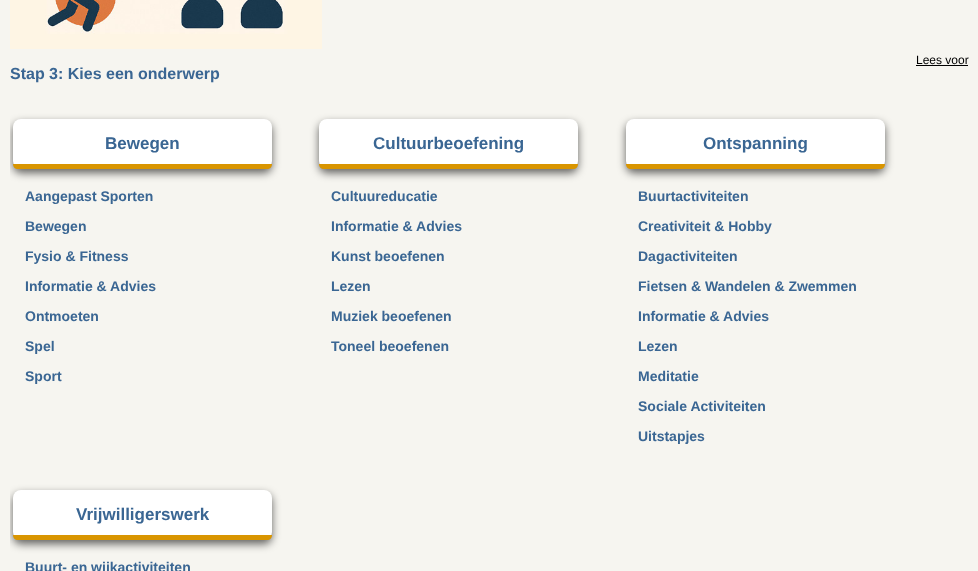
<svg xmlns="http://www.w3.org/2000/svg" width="978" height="571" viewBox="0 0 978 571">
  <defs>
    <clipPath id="clip1"><rect x="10" y="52" width="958" height="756"/></clipPath>
  </defs>
  <rect width="100%" height="100%" fill="rgb(246,245,240)"/>
  <image x="10" y="0" width="312" height="49" href="pic1.png"/>
  <text x="916" y="64" font-family="Liberation Sans" font-size="12" fill="rgb(0,0,0)">Lees voor</text>
  <rect x="916" y="65" width="52" height="1" fill="rgb(0,0,0)"/>
  <text x="10" y="79" font-family="Liberation Sans" font-size="16" font-weight="bold" fill="rgb(58,102,147)">Stap 3: Kies een onderwerp</text>
  <g clip-path="url(#clip1)">
    <rect x="13" y="123" width="259" height="50" rx="8" fill="rgba(0,0,0,0.6)" filter="blur(4px)"/>
  </g>
  <rect x="13" y="119" width="259" height="50" rx="8" fill="rgb(255,255,255)"/>
  <text x="105" y="149" font-family="Liberation Sans" font-size="17" font-weight="bold" fill="rgb(58,102,147)">Bewegen</text>
  <path d="M13 164H272C272 167 270 169 267 169H18C15 169 13 167 13 164Z" fill="rgb(217,149,0)"/>
  <g font-family="Liberation Sans" font-size="14" font-weight="bold" fill="rgb(58,102,147)">
    <text x="25" y="201">Aangepast Sporten</text>
    <text x="25" y="231">Bewegen</text>
    <text x="25" y="261">Fysio &amp; Fitness</text>
    <text x="25" y="291">Informatie &amp; Advies</text>
    <text x="25" y="321">Ontmoeten</text>
    <text x="25" y="351">Spel</text>
    <text x="25" y="381">Sport</text>
  </g>
  <rect x="319" y="123" width="259" height="50" rx="8" fill="rgba(0,0,0,0.6)" filter="blur(4px)"/>
  <rect x="319" y="119" width="259" height="50" rx="8" fill="rgb(255,255,255)"/>
  <text x="373" y="149" font-family="Liberation Sans" font-size="17" font-weight="bold" fill="rgb(58,102,147)">Cultuurbeoefening</text>
  <path d="M319 164H578C578 167 576 169 573 169H324C321 169 319 167 319 164Z" fill="rgb(217,149,0)"/>
  <g font-family="Liberation Sans" font-size="14" font-weight="bold" fill="rgb(58,102,147)">
    <text x="331" y="201">Cultuureducatie</text>
    <text x="331" y="231">Informatie &amp; Advies</text>
    <text x="331" y="261">Kunst beoefenen</text>
    <text x="331" y="291">Lezen</text>
    <text x="331" y="321">Muziek beoefenen</text>
    <text x="331" y="351">Toneel beoefenen</text>
  </g>
  <rect x="626" y="123" width="259" height="50" rx="8" fill="rgba(0,0,0,0.6)" filter="blur(4px)"/>
  <rect x="626" y="119" width="259" height="50" rx="8" fill="rgb(255,255,255)"/>
  <text x="703" y="149" font-family="Liberation Sans" font-size="17" font-weight="bold" fill="rgb(58,102,147)">Ontspanning</text>
  <path d="M626 164H885C885 167 883 169 880 169H631C628 169 626 167 626 164Z" fill="rgb(217,149,0)"/>
  <g font-family="Liberation Sans" font-size="14" font-weight="bold" fill="rgb(58,102,147)">
    <text x="638" y="201">Buurtactiviteiten</text>
    <text x="638" y="231">Creativiteit &amp; Hobby</text>
    <text x="638" y="261">Dagactiviteiten</text>
    <text x="638" y="291">Fietsen &amp; Wandelen &amp; Zwemmen</text>
    <text x="638" y="321">Informatie &amp; Advies</text>
    <text x="638" y="351">Lezen</text>
    <text x="638" y="381">Meditatie</text>
    <text x="638" y="411">Sociale Activiteiten</text>
    <text x="638" y="441">Uitstapjes</text>
  </g>
  <g clip-path="url(#clip1)">
    <rect x="13" y="494" width="259" height="50" rx="8" fill="rgba(0,0,0,0.6)" filter="blur(4px)"/>
  </g>
  <rect x="13" y="490" width="259" height="50" rx="8" fill="rgb(255,255,255)"/>
  <text x="76" y="520" font-family="Liberation Sans" font-size="17" font-weight="bold" fill="rgb(58,102,147)">Vrijwilligerswerk</text>
  <path d="M13 535H272C272 538 270 540 267 540H18C15 540 13 538 13 535Z" fill="rgb(217,149,0)"/>
  <text x="25" y="572" font-family="Liberation Sans" font-size="14" font-weight="bold" fill="rgb(58,102,147)">Buurt- en wijkactiviteiten</text>
</svg>
